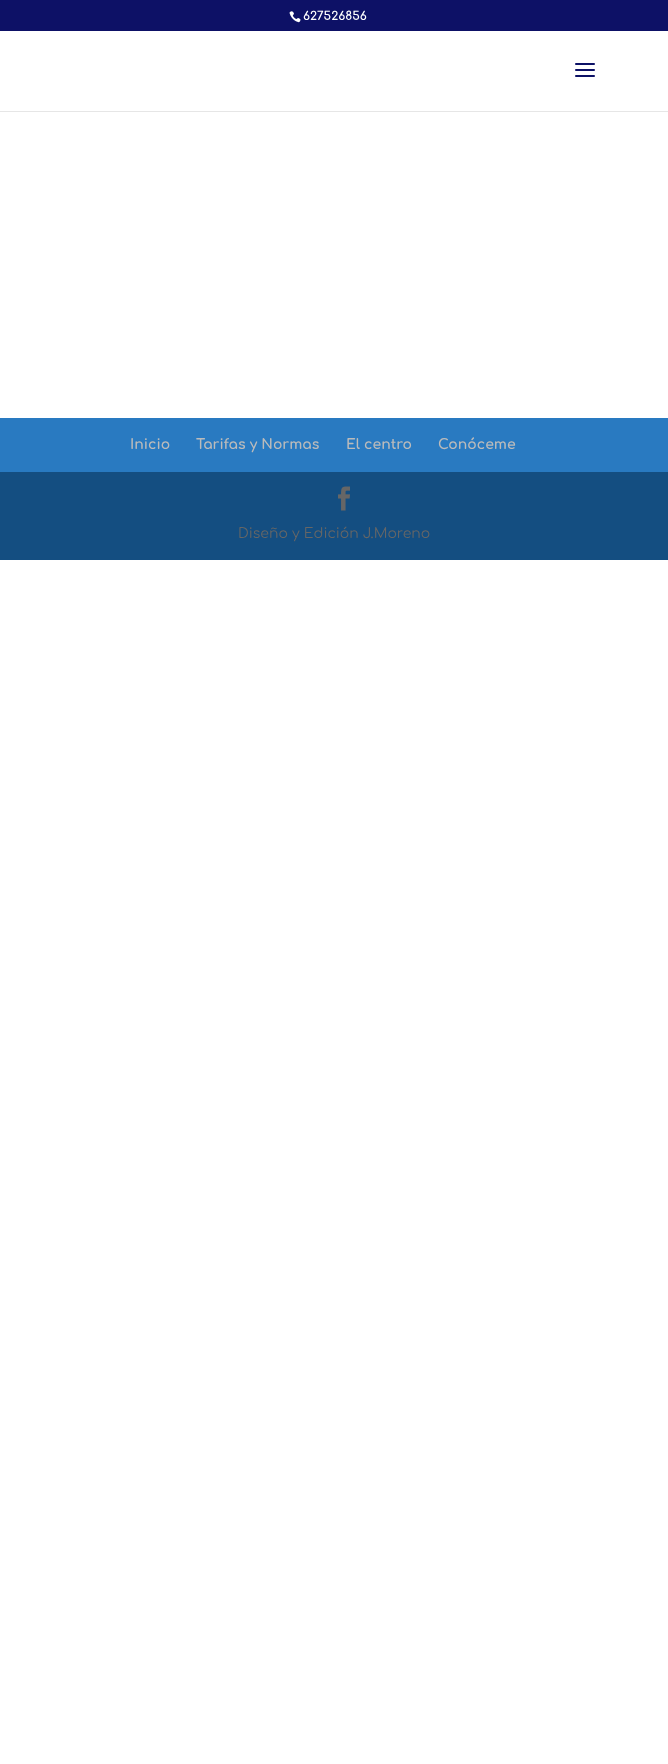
<svg xmlns="http://www.w3.org/2000/svg" width="668" height="1764" viewBox="0 0 668 1764">
  <rect width="100%" height="100%" fill="rgb(255,255,255)"/>
  <rect x="0" y="0" width="668" height="31" fill="rgb(13,17,102)"/>
  <image x="289" y="11" width="12" height="12" href="pic1.png"/>
  <text x="303" y="20" font-family="Comfortaa" font-size="12" font-weight="bold" fill="rgb(255,255,255)">627526856</text>
  <rect x="0" y="111" width="668" height="1" fill="rgb(230,230,230)"/>
  <image x="575" y="63" width="20" height="14" href="pic2.png"/>
  <rect x="0" y="418" width="668" height="54" fill="rgb(41,122,193)"/>
  <g font-family="Comfortaa" font-size="14" font-weight="bold" fill="rgb(187,187,187)">
    <text x="130" y="449">Inicio</text>
    <text x="196" y="449">Tarifas y Normas</text>
    <text x="346" y="449">El centro</text>
    <text x="438" y="449">Conóceme</text>
  </g>
  <rect x="0" y="472" width="668" height="88" fill="rgb(20,78,129)"/>
  <image x="338" y="486" width="12" height="25" href="pic3.png"/>
  <text x="238" y="538" font-family="Comfortaa" font-size="14" fill="rgb(102,102,102)">Diseño y Edición J.Moreno</text>
</svg>
